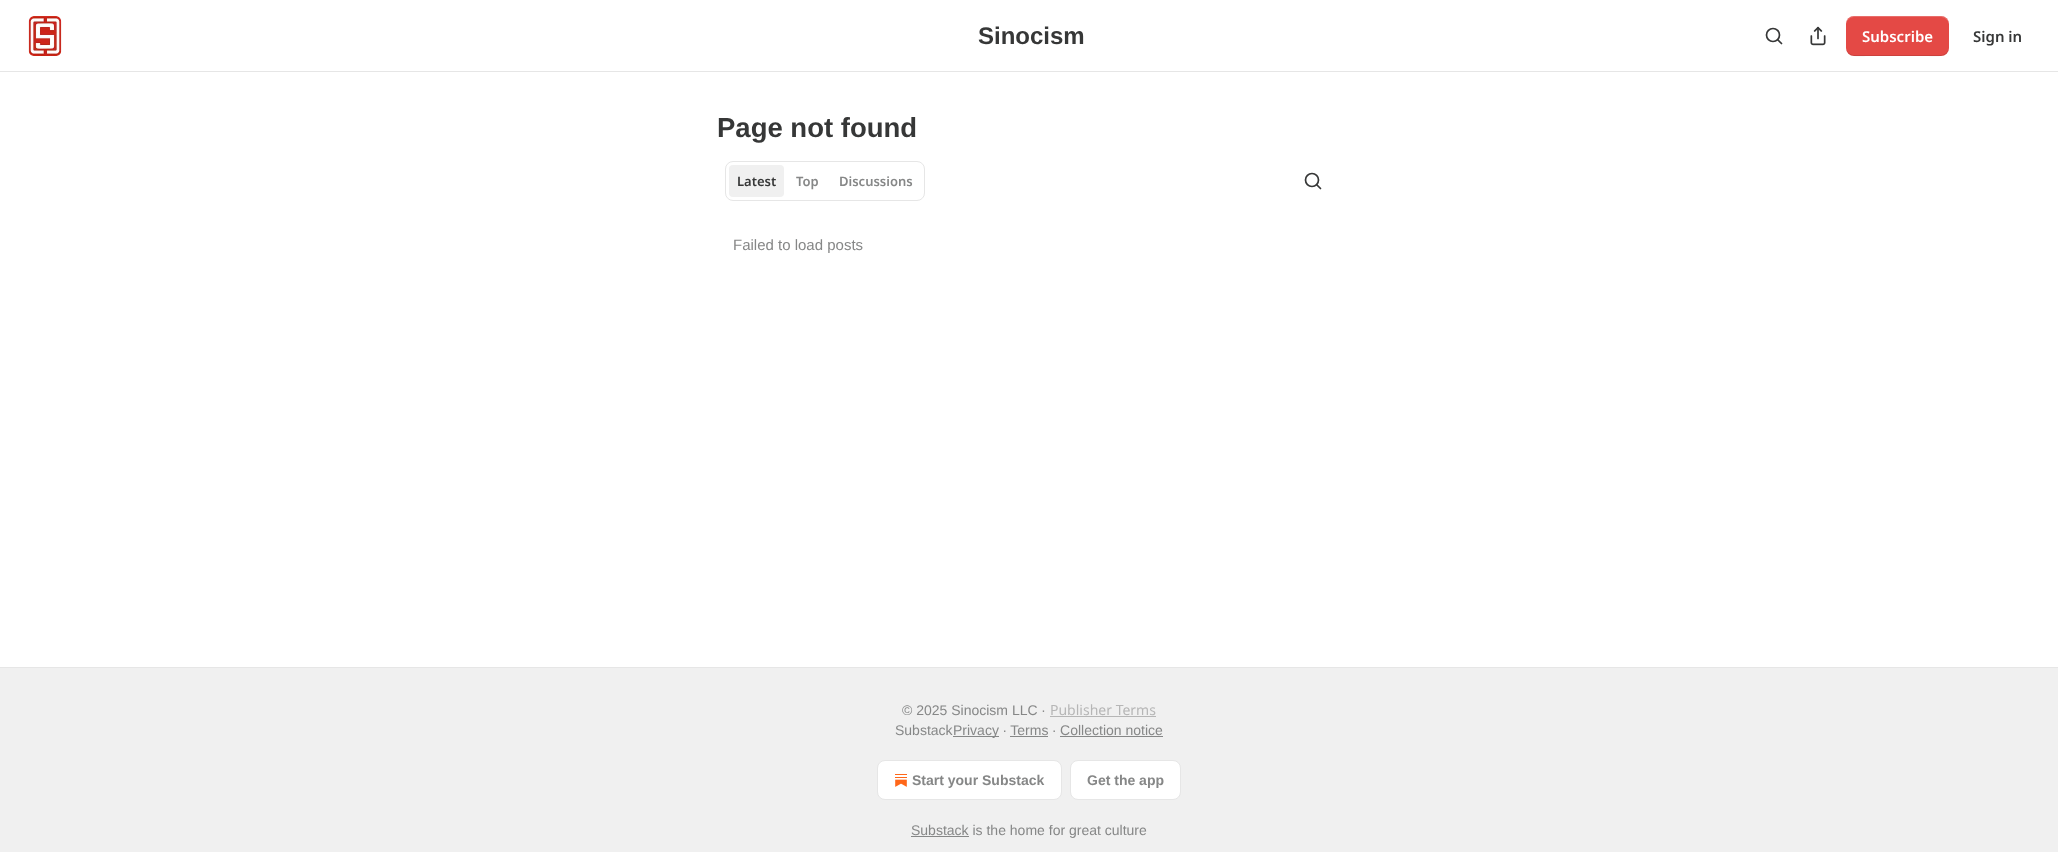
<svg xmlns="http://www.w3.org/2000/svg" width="2058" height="852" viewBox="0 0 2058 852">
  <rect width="100%" height="100%" fill="rgb(255,255,255)"/>
  <rect x="0" y="71" width="2058" height="1" fill="rgb(230,230,230)"/>
  <image x="28" y="16" width="34" height="40" href="pic1.png"/>
  <text x="978" y="44" font-family="Liberation Sans" font-size="24" font-weight="bold" fill="rgb(54,55,55)">Sinocism</text>
  <circle cx="1773" cy="35" r="6.5" fill="none" stroke="rgb(54,55,55)" stroke-width="1.7"/>
  <path d="M1781.5 43.5L1778 40" fill="none" stroke="rgb(54,55,55)" stroke-width="1.7" stroke-linecap="round" stroke-linejoin="round"/>
  <image x="1810" y="26" width="16" height="20" href="pic2.png"/>
  <rect x="1846" y="16" width="103" height="40" rx="8" fill="rgb(228,73,69)"/>
  <path d="M1846 47C1846 59 1860 56 1868 56H1926C1935 56 1949 59 1949 47C1949 51 1945 55 1941 55H1854C1850 55 1846 51 1846 47Z" fill="rgba(0,0,0,0.1)"/>
  <path d="M1854 17H1941C1945 17 1949 21 1949 25C1949 13 1935 16 1926 16H1868C1860 16 1846 13 1846 25C1846 21 1850 17 1854 17Z" fill="rgba(255,255,255,0.2)"/>
  <text x="1862" y="42" font-family="Noto Sans" font-size="15" font-weight="600" fill="rgb(255,255,255)">Subscribe</text>
  <text x="1973" y="42" font-family="Noto Sans" font-size="15" font-weight="600" fill="rgb(54,55,55)">Sign in</text>
  <text x="717" y="137" font-family="Liberation Sans" font-size="27.5" font-weight="bold" fill="rgb(54,55,55)">Page not found</text>
  <rect x="725.5" y="161.5" width="199" height="39" rx="7.5" fill="none" stroke="rgb(230,230,230)"/>
  <rect x="729" y="165" width="55" height="32" rx="4" fill="rgb(240,240,240)"/>
  <text x="737" y="186" font-family="Noto Sans" font-size="13" font-weight="600" fill="rgb(54,55,55)">Latest</text>
  <g font-family="Noto Sans" font-size="13" font-weight="600" fill="rgb(134,135,135)">
    <text x="796" y="186">Top</text>
    <text x="839" y="186">Discussions</text>
  </g>
  <circle cx="1312" cy="180" r="6.5" fill="none" stroke="rgb(54,55,55)" stroke-width="1.7"/>
  <path d="M1320.5 188.5L1317 185" fill="none" stroke="rgb(54,55,55)" stroke-width="1.7" stroke-linecap="round" stroke-linejoin="round"/>
  <text x="733" y="250" font-family="Liberation Sans" font-size="15" fill="rgb(134,135,135)">Failed to load posts</text>
  <rect x="0" y="668" width="2058" height="184" fill="rgb(240,240,240)"/>
  <rect x="0" y="667" width="2058" height="1" fill="rgb(230,230,230)"/>
  <text x="902" y="715" font-family="Liberation Sans" font-size="14" fill="rgb(134,135,135)">© 2025 Sinocism LLC ∙</text>
  <text x="1050" y="715" font-family="Noto Sans" font-size="14" fill="rgb(182,182,182)">Publisher Terms</text>
  <rect x="1050" y="716" width="106" height="1" fill="rgb(182,182,182)"/>
  <text x="895" y="735" font-family="Liberation Sans" font-size="14" fill="rgb(134,135,135)">Substack</text>
  <rect x="953" y="736" width="46" height="1" fill="rgb(134,135,135)"/>
  <text x="953" y="735" font-family="Liberation Sans" font-size="14" fill="rgb(134,135,135)">Privacy ∙ Terms ∙ Collection notice</text>
  <rect x="1010" y="736" width="38" height="1" fill="rgb(134,135,135)"/>
  <rect x="1060" y="736" width="103" height="1" fill="rgb(134,135,135)"/>
  <rect x="877.5" y="760.5" width="184" height="39" rx="7.5" fill="rgb(255,255,255)" stroke="rgb(230,230,230)"/>
  <image x="895" y="774" width="12" height="13" href="pic3.png"/>
  <text x="912" y="785" font-family="Liberation Sans" font-size="14" font-weight="bold" fill="rgb(134,135,135)">Start your Substack</text>
  <rect x="1070.5" y="760.5" width="110" height="39" rx="7.5" fill="rgb(255,255,255)" stroke="rgb(230,230,230)"/>
  <text x="1087" y="785" font-family="Liberation Sans" font-size="14" font-weight="bold" fill="rgb(134,135,135)">Get the app</text>
  <rect x="911" y="836" width="58" height="1" fill="rgb(134,135,135)"/>
  <text x="911" y="835" font-family="Liberation Sans" font-size="14" fill="rgb(134,135,135)">Substack is the home for great culture</text>
</svg>
